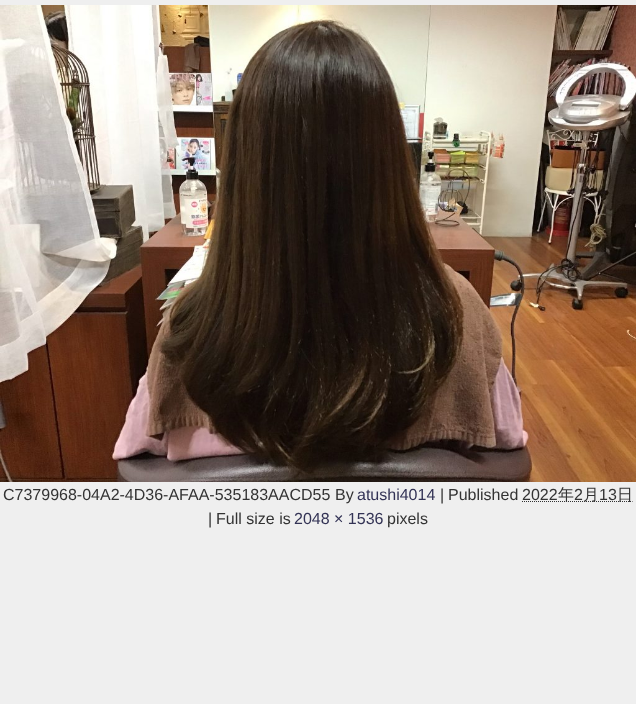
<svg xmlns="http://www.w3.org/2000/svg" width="636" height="704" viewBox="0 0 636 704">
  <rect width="100%" height="100%" fill="rgb(239,239,239)"/>
  <image x="0" y="5" width="636" height="477" href="pic1.png"/>
  <g font-family="Liberation Sans" font-size="16" fill="rgb(51,51,51)">
    <text x="3" y="500">C7379968-04A2-4D36-AFAA-535183AACD55</text>
    <text x="335" y="500">By</text>
  </g>
  <text x="357" y="500" font-family="Liberation Sans" font-size="16" fill="rgb(51,51,85)">atushi4014</text>
  <g font-family="Liberation Sans" font-size="16" fill="rgb(51,51,51)">
    <text x="440" y="500">|</text>
    <text x="448" y="500">Published</text>
    <text x="522" y="500">2022</text>
  </g>
  <path d="M522 501.5H632.5" fill="none" stroke="rgb(51,51,51)" stroke-dasharray="1 1"/>
  <text x="558" y="500" font-family="WenQuanYi Zen Hei" font-size="16" font-weight="500" fill="rgb(51,51,51)">年</text>
  <text x="574" y="500" font-family="Liberation Sans" font-size="16" fill="rgb(51,51,51)">2</text>
  <text x="583" y="500" font-family="WenQuanYi Zen Hei" font-size="16" font-weight="500" fill="rgb(51,51,51)">月</text>
  <text x="599" y="500" font-family="Liberation Sans" font-size="16" fill="rgb(51,51,51)">13</text>
  <text x="617" y="500" font-family="WenQuanYi Zen Hei" font-size="16" font-weight="500" fill="rgb(51,51,51)">日</text>
  <g font-family="Liberation Sans" font-size="16" fill="rgb(51,51,51)">
    <text x="208" y="524">|</text>
    <text x="216" y="524">Full size is</text>
  </g>
  <text x="294" y="524" font-family="Liberation Sans" font-size="16" fill="rgb(51,51,85)">2048 × 1536</text>
  <text x="387" y="524" font-family="Liberation Sans" font-size="16" fill="rgb(51,51,51)">pixels</text>
</svg>
